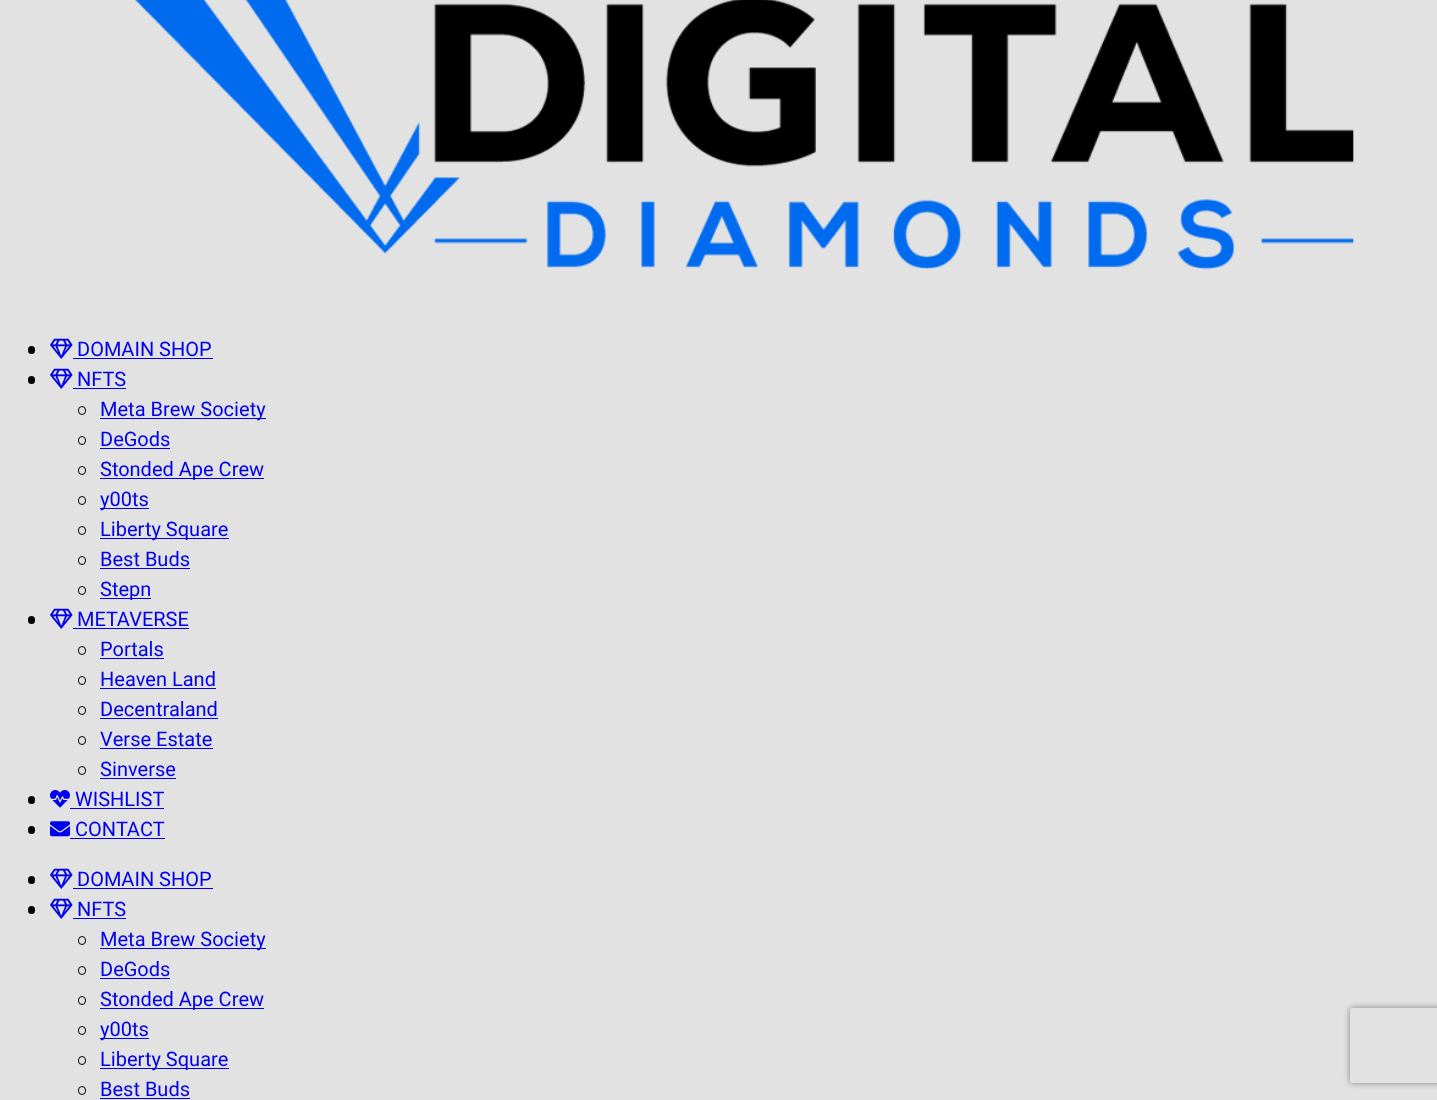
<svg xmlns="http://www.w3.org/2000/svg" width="1437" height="1100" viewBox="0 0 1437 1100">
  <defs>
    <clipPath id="clip1"><path d="M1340 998H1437V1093H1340ZM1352.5 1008H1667.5C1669 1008 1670 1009 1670 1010.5V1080.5C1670 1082 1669 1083 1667.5 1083H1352.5C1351 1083 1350 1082 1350 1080.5V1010.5C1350 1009 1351 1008 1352.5 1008Z" clip-rule="evenodd"/></clipPath>
  </defs>
  <rect width="100%" height="100%" fill="rgb(226,226,226)"/>
  <image x="134" y="0" width="1220" height="270" href="pic1.png"/>
  <rect x="28" y="346" width="7" height="8" rx="3.5" fill="rgb(0,0,0)"/>
  <image x="50" y="338" width="23" height="21" href="pic2.png"/>
  <text x="77" y="356" font-family="Heebo" font-size="20" fill="rgb(0,0,238)">DOMAIN SHOP</text>
  <rect x="73" y="358" width="140" height="1" fill="rgb(0,0,238)"/>
  <rect x="28" y="376" width="7" height="8" rx="3.5" fill="rgb(0,0,0)"/>
  <image x="50" y="368" width="23" height="21" href="pic2.png"/>
  <text x="77" y="386" font-family="Heebo" font-size="20" fill="rgb(0,0,238)">NFTS</text>
  <rect x="73" y="388" width="53" height="1" fill="rgb(0,0,238)"/>
  <rect x="78.5" y="406.5" width="7" height="8" rx="3.5" fill="none" stroke="rgb(0,0,0)"/>
  <rect x="100" y="418" width="166" height="1" fill="rgb(0,0,238)"/>
  <text x="100" y="416" font-family="Heebo" font-size="20" fill="rgb(0,0,238)">Meta Brew Society</text>
  <rect x="78.5" y="436.5" width="7" height="8" rx="3.5" fill="none" stroke="rgb(0,0,0)"/>
  <text x="100" y="446" font-family="Heebo" font-size="20" fill="rgb(0,0,238)">DeGods</text>
  <rect x="100" y="448" width="70" height="1" fill="rgb(0,0,238)"/>
  <rect x="78.5" y="466.5" width="7" height="8" rx="3.5" fill="none" stroke="rgb(0,0,0)"/>
  <rect x="100" y="478" width="164" height="1" fill="rgb(0,0,238)"/>
  <text x="100" y="476" font-family="Heebo" font-size="20" fill="rgb(0,0,238)">Stonded Ape Crew</text>
  <rect x="78.5" y="496.5" width="7" height="8" rx="3.5" fill="none" stroke="rgb(0,0,0)"/>
  <rect x="100" y="508" width="49" height="1" fill="rgb(0,0,238)"/>
  <text x="100" y="506" font-family="Heebo" font-size="20" fill="rgb(0,0,238)">y00ts</text>
  <rect x="78.5" y="526.5" width="7" height="8" rx="3.5" fill="none" stroke="rgb(0,0,0)"/>
  <rect x="100" y="538" width="129" height="1" fill="rgb(0,0,238)"/>
  <text x="100" y="536" font-family="Heebo" font-size="20" fill="rgb(0,0,238)">Liberty Square</text>
  <rect x="78.5" y="556.5" width="7" height="8" rx="3.5" fill="none" stroke="rgb(0,0,0)"/>
  <text x="100" y="566" font-family="Heebo" font-size="20" fill="rgb(0,0,238)">Best Buds</text>
  <rect x="100" y="568" width="90" height="1" fill="rgb(0,0,238)"/>
  <rect x="78.5" y="586.5" width="7" height="8" rx="3.5" fill="none" stroke="rgb(0,0,0)"/>
  <rect x="100" y="598" width="51" height="1" fill="rgb(0,0,238)"/>
  <text x="100" y="596" font-family="Heebo" font-size="20" fill="rgb(0,0,238)">Stepn</text>
  <rect x="28" y="616" width="7" height="8" rx="3.5" fill="rgb(0,0,0)"/>
  <image x="50" y="608" width="23" height="21" href="pic2.png"/>
  <text x="77" y="626" font-family="Heebo" font-size="20" fill="rgb(0,0,238)">METAVERSE</text>
  <rect x="73" y="628" width="116" height="1" fill="rgb(0,0,238)"/>
  <rect x="78.5" y="646.5" width="7" height="8" rx="3.5" fill="none" stroke="rgb(0,0,0)"/>
  <text x="100" y="656" font-family="Heebo" font-size="20" fill="rgb(0,0,238)">Portals</text>
  <rect x="100" y="658" width="64" height="1" fill="rgb(0,0,238)"/>
  <rect x="78.5" y="676.5" width="7" height="8" rx="3.5" fill="none" stroke="rgb(0,0,0)"/>
  <text x="100" y="686" font-family="Heebo" font-size="20" fill="rgb(0,0,238)">Heaven Land</text>
  <rect x="100" y="688" width="116" height="1" fill="rgb(0,0,238)"/>
  <rect x="78.5" y="706.5" width="7" height="8" rx="3.5" fill="none" stroke="rgb(0,0,0)"/>
  <text x="100" y="716" font-family="Heebo" font-size="20" fill="rgb(0,0,238)">Decentraland</text>
  <rect x="100" y="718" width="118" height="1" fill="rgb(0,0,238)"/>
  <rect x="78.5" y="736.5" width="7" height="8" rx="3.5" fill="none" stroke="rgb(0,0,0)"/>
  <text x="100" y="746" font-family="Heebo" font-size="20" fill="rgb(0,0,238)">Verse Estate</text>
  <rect x="100" y="748" width="113" height="1" fill="rgb(0,0,238)"/>
  <rect x="78.5" y="766.5" width="7" height="8" rx="3.5" fill="none" stroke="rgb(0,0,0)"/>
  <text x="100" y="776" font-family="Heebo" font-size="20" fill="rgb(0,0,238)">Sinverse</text>
  <rect x="100" y="778" width="76" height="1" fill="rgb(0,0,238)"/>
  <rect x="28" y="796" width="7" height="8" rx="3.5" fill="rgb(0,0,0)"/>
  <image x="50" y="790" width="20" height="18" href="pic3.png"/>
  <text x="75" y="806" font-family="Heebo" font-size="20" fill="rgb(0,0,238)">WISHLIST</text>
  <rect x="70" y="808" width="94" height="1" fill="rgb(0,0,238)"/>
  <rect x="28" y="826" width="7" height="8" rx="3.5" fill="rgb(0,0,0)"/>
  <image x="50" y="821" width="20" height="16" href="pic4.png"/>
  <text x="75" y="836" font-family="Heebo" font-size="20" fill="rgb(0,0,238)">CONTACT</text>
  <rect x="70" y="838" width="95" height="1" fill="rgb(0,0,238)"/>
  <rect x="28" y="876" width="7" height="8" rx="3.5" fill="rgb(0,0,0)"/>
  <image x="50" y="868" width="23" height="21" href="pic2.png"/>
  <text x="77" y="886" font-family="Heebo" font-size="20" fill="rgb(0,0,238)">DOMAIN SHOP</text>
  <rect x="73" y="888" width="140" height="1" fill="rgb(0,0,238)"/>
  <rect x="28" y="906" width="7" height="8" rx="3.5" fill="rgb(0,0,0)"/>
  <image x="50" y="898" width="23" height="21" href="pic2.png"/>
  <text x="77" y="916" font-family="Heebo" font-size="20" fill="rgb(0,0,238)">NFTS</text>
  <rect x="73" y="918" width="53" height="1" fill="rgb(0,0,238)"/>
  <rect x="78.5" y="936.5" width="7" height="8" rx="3.5" fill="none" stroke="rgb(0,0,0)"/>
  <rect x="100" y="948" width="166" height="1" fill="rgb(0,0,238)"/>
  <text x="100" y="946" font-family="Heebo" font-size="20" fill="rgb(0,0,238)">Meta Brew Society</text>
  <rect x="78.5" y="966.5" width="7" height="8" rx="3.5" fill="none" stroke="rgb(0,0,0)"/>
  <text x="100" y="976" font-family="Heebo" font-size="20" fill="rgb(0,0,238)">DeGods</text>
  <rect x="100" y="978" width="70" height="1" fill="rgb(0,0,238)"/>
  <rect x="78.5" y="996.5" width="7" height="8" rx="3.5" fill="none" stroke="rgb(0,0,0)"/>
  <rect x="100" y="1008" width="164" height="1" fill="rgb(0,0,238)"/>
  <text x="100" y="1006" font-family="Heebo" font-size="20" fill="rgb(0,0,238)">Stonded Ape Crew</text>
  <rect x="78.5" y="1026.5" width="7" height="8" rx="3.5" fill="none" stroke="rgb(0,0,0)"/>
  <rect x="100" y="1038" width="49" height="1" fill="rgb(0,0,238)"/>
  <text x="100" y="1036" font-family="Heebo" font-size="20" fill="rgb(0,0,238)">y00ts</text>
  <rect x="78.5" y="1056.5" width="7" height="8" rx="3.5" fill="none" stroke="rgb(0,0,0)"/>
  <rect x="100" y="1068" width="129" height="1" fill="rgb(0,0,238)"/>
  <text x="100" y="1066" font-family="Heebo" font-size="20" fill="rgb(0,0,238)">Liberty Square</text>
  <rect x="78.5" y="1086.5" width="7" height="8" rx="3.5" fill="none" stroke="rgb(0,0,0)"/>
  <text x="100" y="1096" font-family="Heebo" font-size="20" fill="rgb(0,0,238)">Best Buds</text>
  <rect x="100" y="1098" width="90" height="1" fill="rgb(0,0,238)"/>
  <g clip-path="url(#clip1)">
    <rect x="1350" y="1008" width="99" height="75" rx="2.5" fill="rgb(128,128,128)" filter="blur(3px)"/>
  </g>
</svg>
